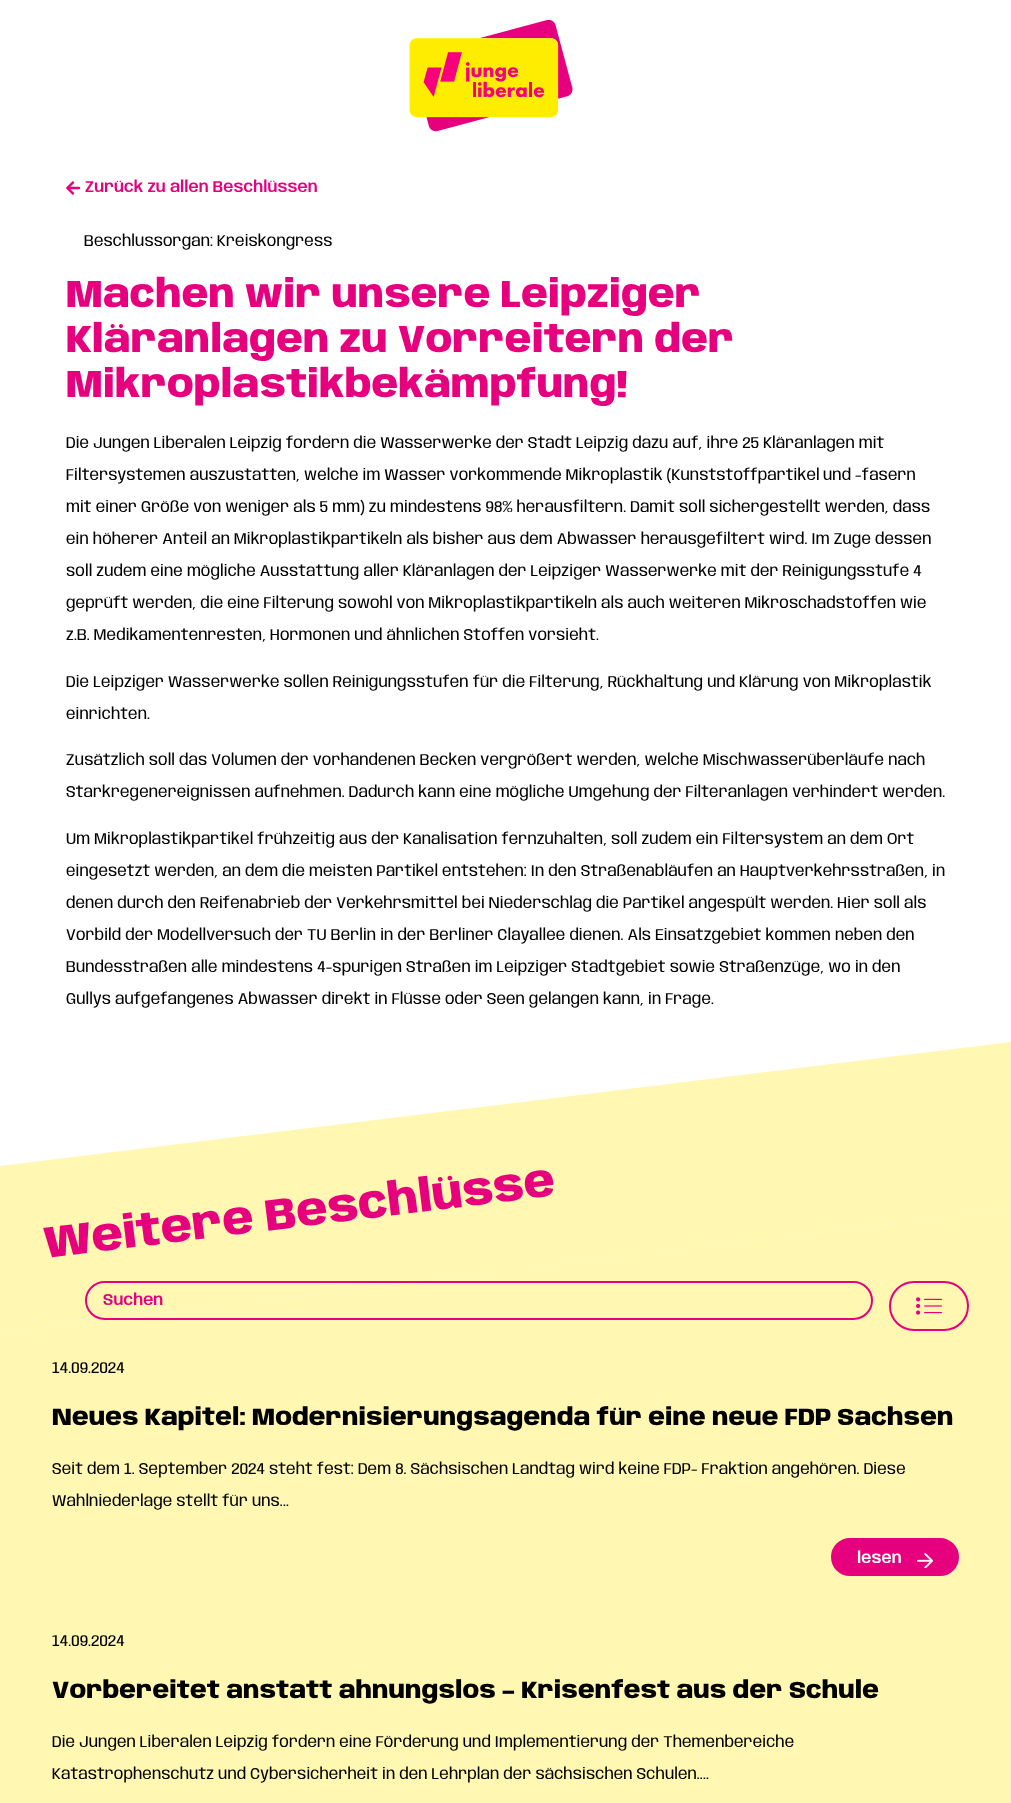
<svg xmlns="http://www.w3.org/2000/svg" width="1011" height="1803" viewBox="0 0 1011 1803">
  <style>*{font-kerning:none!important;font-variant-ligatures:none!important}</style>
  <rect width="100%" height="100%" fill="rgb(255,255,255)"/>
  <image x="409" y="19" width="164" height="113" href="pic1.png"/>
  <image x="66" y="181" width="14" height="14" href="pic2.png"/>
  <text x="85" y="192" font-family="Anybody" font-size="16" font-weight="600" fill="rgb(230,0,126)">Zurück zu allen Beschlüssen</text>
  <text x="84" y="246" font-family="Anybody" font-size="16" fill="rgb(0,0,0)">Beschlussorgan: Kreiskongress</text>
  <g font-family="Anybody" font-size="38.4" font-weight="800" fill="rgb(230,0,126)">
    <text>
      <tspan x="66" y="307">Machen wir unsere Leipziger</tspan>
      <tspan x="66" y="352">Kläranlagen zu Vorreitern der</tspan>
      <tspan x="66" y="397">Mikroplastikbekämpfung!</tspan>
    </text>
  </g>
  <g font-family="Anybody" font-size="16" fill="rgb(0,0,0)">
    <text x="66" y="448">Die Jungen Liberalen Leipzig fordern die Wasserwerke der Stadt Leipzig dazu auf, ihre 25 Kläranlagen mit</text>
    <text x="66" y="480">Filtersystemen auszustatten, welche im Wasser vorkommende Mikroplastik (Kunststoffpartikel</text>
    <text x="823" y="480">und -fasern</text>
    <text x="66" y="512">mit einer Größe von weniger als 5 mm) zu mindestens 98% herausﬁltern. Damit soll sichergestellt werden, dass</text>
    <text x="66" y="544">ein höherer Anteil an Mikroplastikpartikeln als bisher aus dem Abwasser herausgeﬁltert wird. Im Zuge dessen</text>
    <text x="66" y="576">soll zudem eine mögliche Ausstattung aller Kläranlagen der Leipziger Wasserwerke mit der Reinigungsstufe 4</text>
    <text x="66" y="608">geprüft werden, die eine Filterung sowohl von Mikroplastikpartikeln als auch weiteren Mikroschadstoffen</text>
    <text x="900" y="608">wie</text>
    <text x="66" y="640">z.B. Medikamentenresten, Hormonen und ähnlichen Stoffen vorsieht.</text>
    <text x="66" y="687">Die Leipziger Wasserwerke sollen Reinigungsstufen für die Filterung, Rückhaltung und Klärung von Mikroplastik</text>
    <text x="66" y="719">einrichten.</text>
    <text x="66" y="765">Zusätzlich soll das Volumen der vorhandenen Becken vergrößert werden, welche Mischwasserüberläufe nach</text>
    <text x="66" y="797">Starkregenereignissen aufnehmen. Dadurch kann eine mögliche Umgehung der Filteranlagen verhindert werden.</text>
    <text x="66" y="844">Um Mikroplastikpartikel frühzeitig aus der Kanalisation fernzuhalten, soll zudem ein Filtersystem an dem Ort</text>
    <text x="66" y="876">eingesetzt werden, an dem die meisten Partikel entstehen: In den Straßenabläufen an Hauptverkehrsstraßen, in</text>
    <text x="66" y="908">denen durch den Reifenabrieb der Verkehrsmittel bei Niederschlag die Partikel angespült werden. Hier soll als</text>
    <text x="66" y="940">Vorbild der Modellversuch der TU Berlin in der Berliner Clayallee dienen. Als Einsatzgebiet kommen neben den</text>
    <text x="66" y="972">Bundesstraßen alle mindestens 4-spurigen Straßen im Leipziger Stadtgebiet sowie Straßenzüge, wo in den</text>
    <text x="66" y="1004">Gullys aufgefangenes Abwasser direkt in Flüsse oder Seen gelangen kann, in Frage.</text>
  </g>
  <path d="M0 1166L1011 1042V1209L0 1333Z" fill="rgb(255,247,178)"/>
  <text x="46" y="1258" transform="rotate(-7 46 1258)" font-family="Anybody" font-size="44.75" font-weight="800" fill="rgb(230,0,126)">Weitere Beschlüsse</text>
  <path d="M0 1333L1011 1209V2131L0 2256Z" fill="rgb(255,247,178)"/>
  <rect x="86" y="1282" width="786" height="37" rx="18.5" fill="none" stroke="rgb(230,0,126)" stroke-width="2"/>
  <text x="103" y="1305" font-family="Anybody" font-size="16" font-weight="600" fill="rgb(230,0,126)">Suchen</text>
  <rect x="890" y="1282" width="78" height="48" rx="24" fill="none" stroke="rgb(230,0,126)" stroke-width="2"/>
  <image x="916" y="1297" width="26" height="18" href="pic3.png"/>
  <text x="52" y="1373" font-family="Anybody" font-size="16" fill="rgb(0,0,0)">14.09.2024</text>
  <text x="52" y="1425" font-family="Anybody" font-size="24" font-weight="800" fill="rgb(0,0,0)">Neues Kapitel: Modernisierungsagenda für eine neue FDP Sachsen</text>
  <g font-family="Anybody" font-size="16" fill="rgb(0,0,0)">
    <text x="52" y="1474">Seit dem 1. September 2024 steht fest: Dem 8. Sächsischen Landtag wird keine FDP- Fraktion angehören. Diese</text>
    <text x="52" y="1506">Wahlniederlage stellt für uns...</text>
  </g>
  <rect x="832" y="1539" width="126" height="36" rx="18" fill="rgb(230,0,126)" stroke="rgb(230,0,126)" stroke-width="2"/>
  <text x="857" y="1563" font-family="Anybody" font-size="16" font-weight="600" fill="rgb(255,255,255)">lesen</text>
  <image x="917" y="1553" width="16" height="15" href="pic4.png"/>
  <text x="52" y="1646" font-family="Anybody" font-size="16" fill="rgb(0,0,0)">14.09.2024</text>
  <text x="52" y="1698" font-family="Anybody" font-size="24" font-weight="800" fill="rgb(0,0,0)">Vorbereitet anstatt ahnungslos – Krisenfest aus der Schule</text>
  <g font-family="Anybody" font-size="16" fill="rgb(0,0,0)">
    <text x="52" y="1747">Die Jungen Liberalen Leipzig fordern eine Förderung und Implementierung der Themenbereiche</text>
    <text x="52" y="1779">Katastrophenschutz und Cybersicherheit in den Lehrplan der sächsischen Schulen....</text>
  </g>
</svg>
